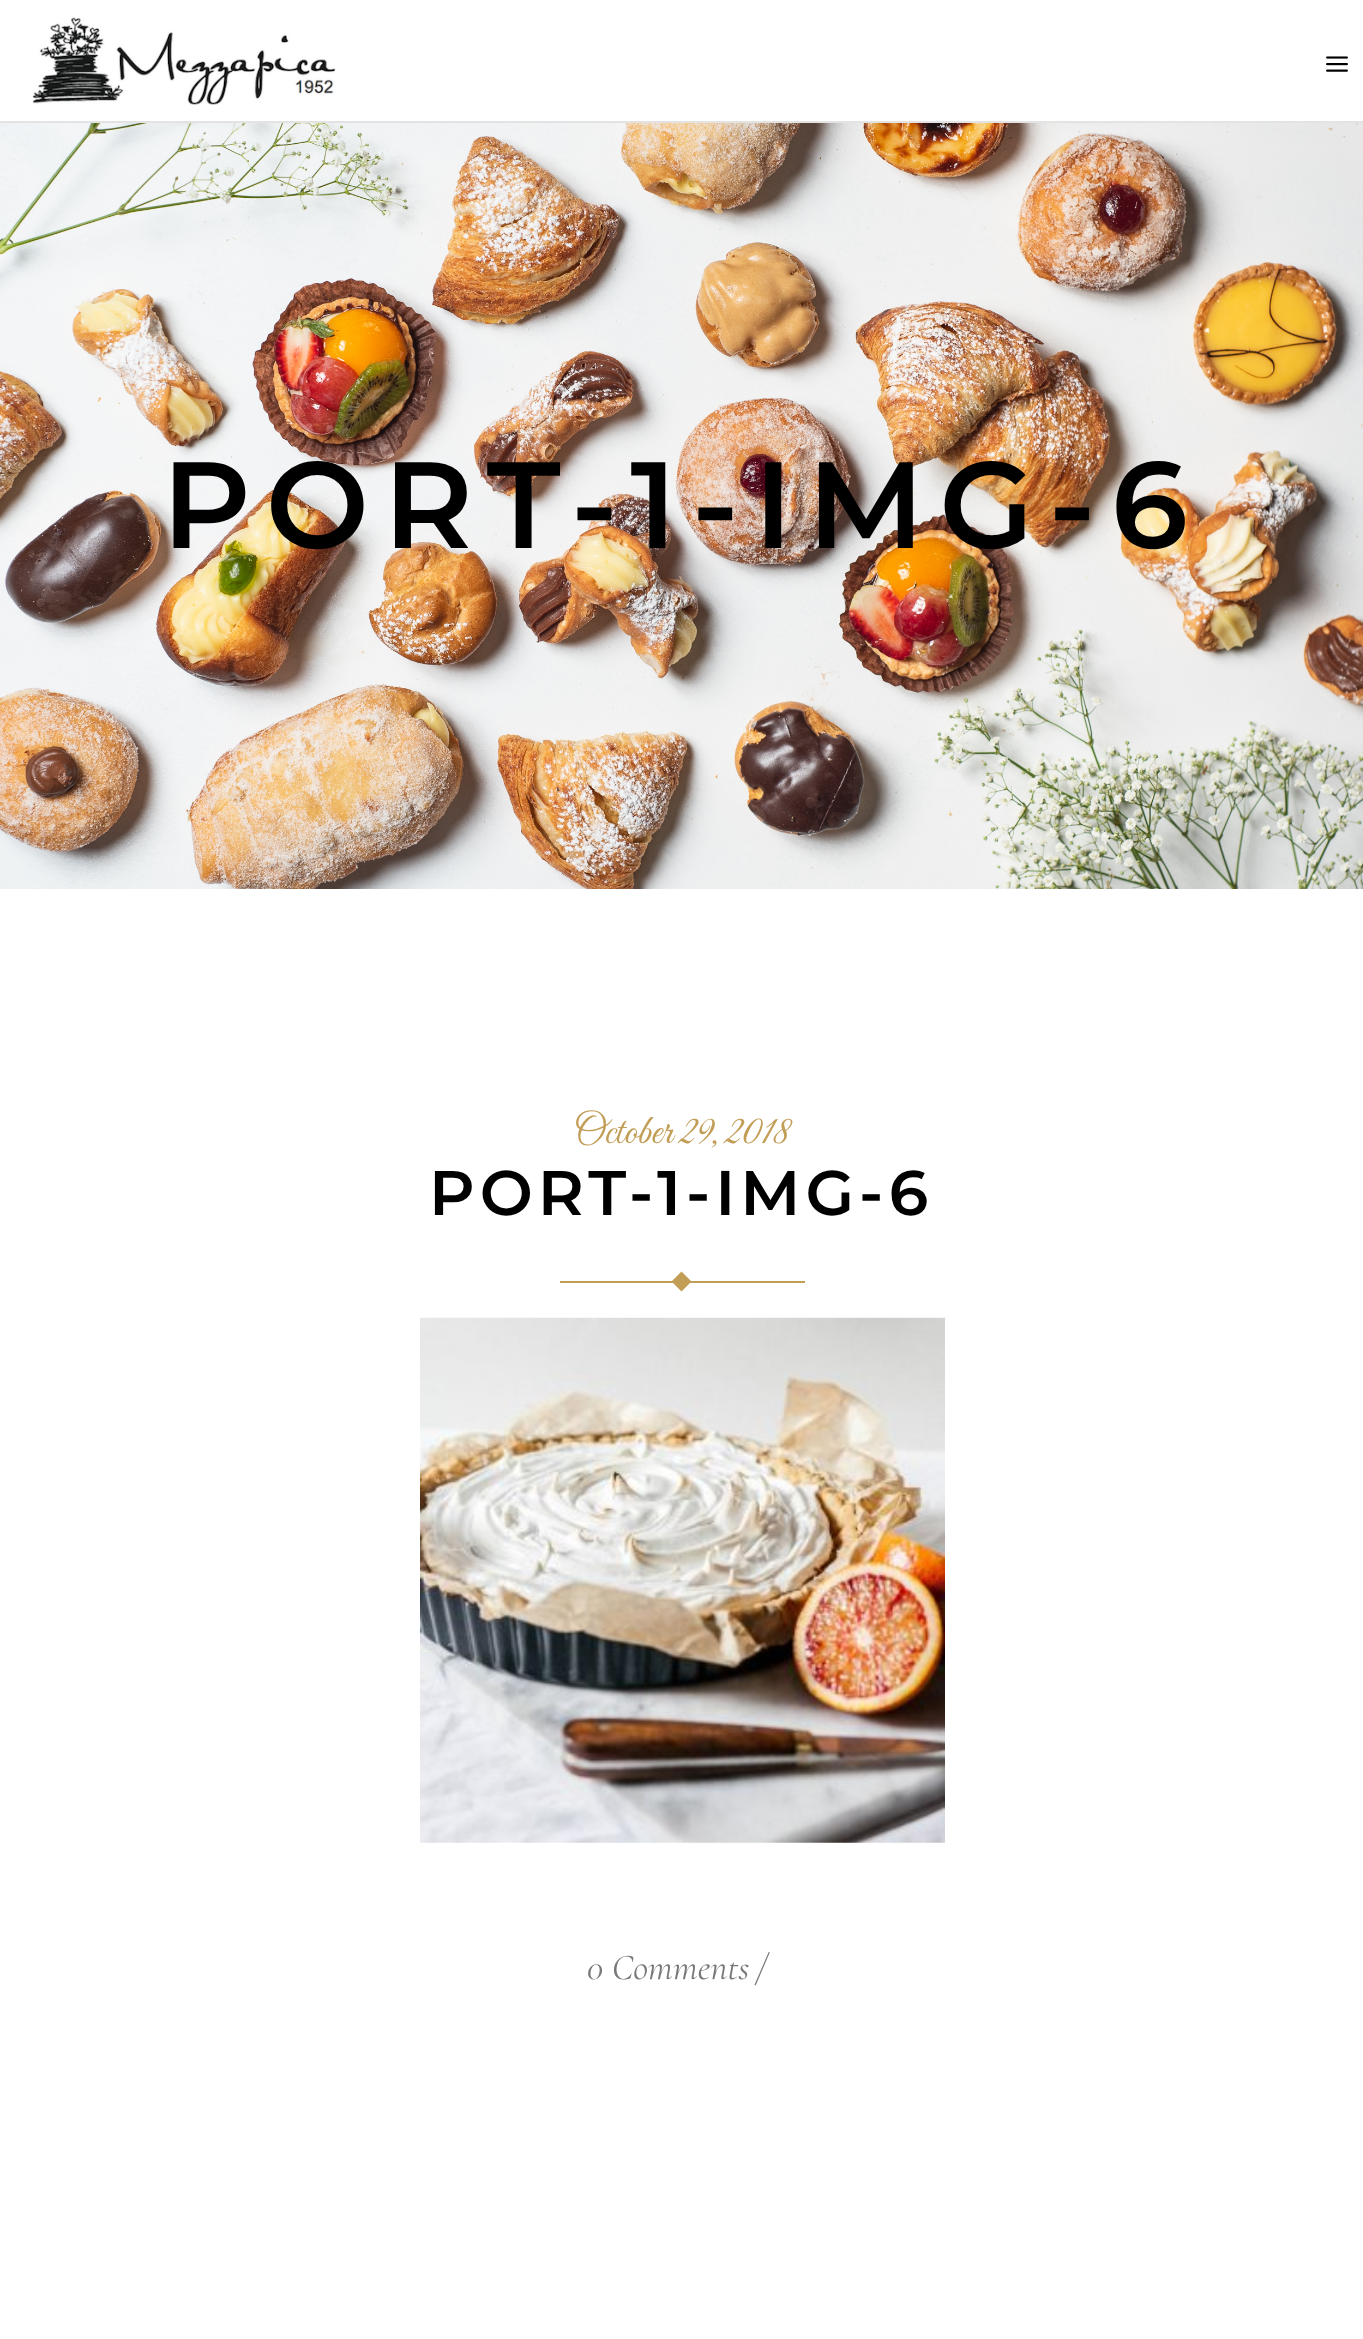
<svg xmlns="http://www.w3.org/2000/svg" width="1363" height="2339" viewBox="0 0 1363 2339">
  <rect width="100%" height="100%" fill="rgb(255,255,255)"/>
  <rect x="0" y="121" width="1363" height="2" fill="rgb(227,227,227)"/>
  <image x="32" y="17" width="304" height="88" href="pic1.png"/>
  <image x="1326" y="56" width="22" height="16" href="pic2.png"/>
  <image x="0" y="123" width="1363" height="766" href="pic3.png"/>
  <text x="162" y="548" font-family="Montserrat" font-size="122.5" font-weight="600" letter-spacing="14.75" fill="rgb(0,0,0)">PORT-1-IMG-6</text>
  <text x="574" y="1143" font-family="Great Vibes" font-size="42" fill="rgb(193,157,86)">October 29, 2018</text>
  <text x="429" y="1215" font-family="Montserrat" font-size="63" font-weight="600" letter-spacing="5" fill="rgb(0,0,0)">PORT-1-IMG-6</text>
  <rect x="560" y="1281" width="245" height="2" fill="rgb(193,157,86)"/>
  <path d="M681.5 1271.5L691.5 1281.5L681.5 1291.5L671.5 1281.5Z" fill="rgb(193,157,86)"/>
  <image x="420" y="1317" width="525" height="526" href="pic4.png"/>
  <g font-family="Cormorant" font-size="36.75" font-style="italic" fill="rgb(120,120,120)">
    <text x="587" y="1979">0 Comments</text>
    <text x="756" y="1979">/</text>
  </g>
</svg>
